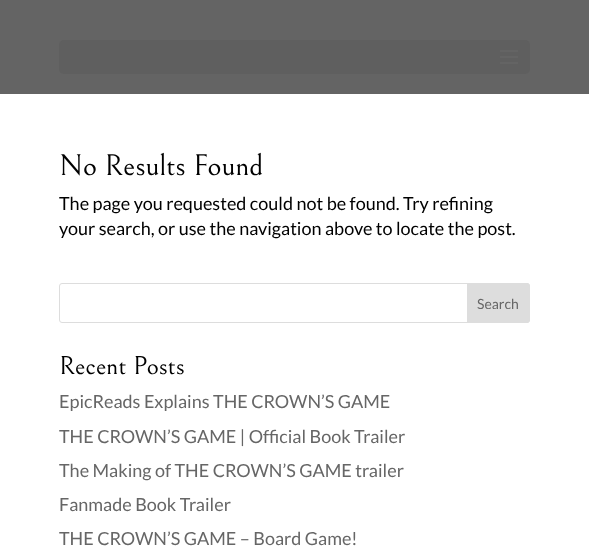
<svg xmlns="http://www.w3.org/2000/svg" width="589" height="553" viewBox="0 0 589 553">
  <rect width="100%" height="100%" fill="rgb(255,255,255)"/>
  <rect x="0" y="0" width="589" height="94" fill="rgb(100,100,100)"/>
  <rect x="59" y="40" width="471" height="34" rx="5" fill="rgb(95,95,95)"/>
  <image x="500" y="50" width="18" height="14" href="pic1.png"/>
  <text x="59" y="175" font-family="Bellefair" font-size="30" fill="rgb(0,0,0)">No Results Found</text>
  <g font-family="Lato" font-size="18" fill="rgb(0,0,0)">
    <text>
      <tspan x="59" y="210">The page you requested could not be found. Try refining</tspan>
      <tspan x="59" y="235">your search, or use the navigation above to locate the post.</tspan>
    </text>
  </g>
  <rect x="59.5" y="283.5" width="470" height="39" rx="2.5" fill="none" stroke="rgb(221,221,221)"/>
  <path d="M467.5 283.5H527C528.5 283.5 529.5 284.5 529.5 286V320C529.5 321.5 528.5 322.5 527 322.5H467.5Z" fill="rgb(221,221,221)" stroke="rgb(221,221,221)"/>
  <text x="477" y="309" font-family="Lato" font-size="14" fill="rgb(102,102,102)">Search</text>
  <text x="59" y="374" font-family="Bellefair" font-size="26" fill="rgb(0,0,0)">Recent Posts</text>
  <g font-family="Lato" font-size="18" fill="rgb(102,102,102)">
    <text>
      <tspan x="59" y="408">EpicReads Explains THE CROWN’S GAME</tspan>
      <tspan x="59" y="443">THE CROWN’S GAME | Official Book Trailer</tspan>
      <tspan x="59" y="477">The Making of THE CROWN’S GAME trailer</tspan>
      <tspan x="59" y="511">Fanmade Book Trailer</tspan>
      <tspan x="59" y="545">THE CROWN’S GAME – Board Game!</tspan>
    </text>
  </g>
</svg>
